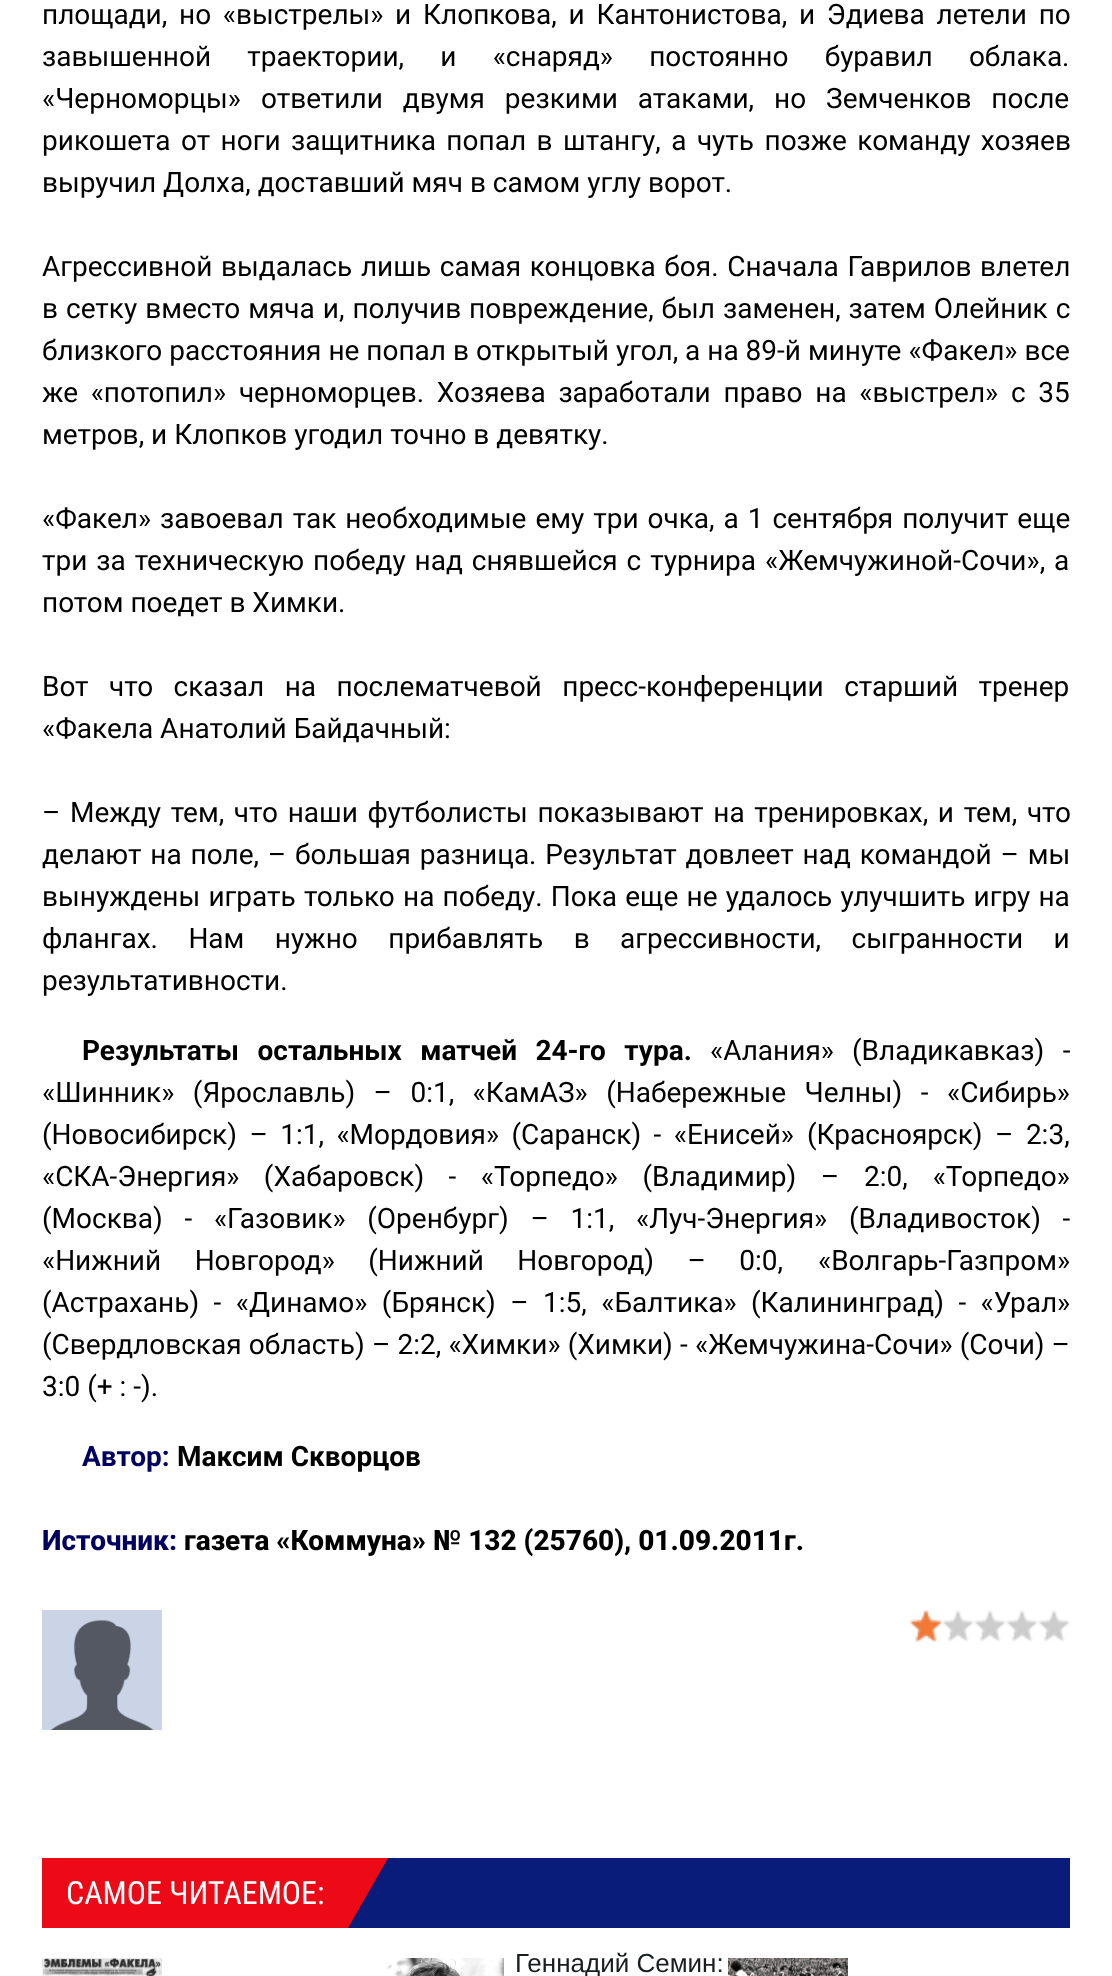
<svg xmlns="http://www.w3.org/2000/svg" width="1112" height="1976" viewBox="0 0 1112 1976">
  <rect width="100%" height="100%" fill="rgb(255,255,255)"/>
  <g font-family="Roboto" font-size="28" fill="rgb(0,0,0)">
    <text>
      <tspan x="42" y="24" word-spacing="4.75">площади, но «выстрелы» и Клопкова, и Кантонистова, и Эдиева летели по</tspan>
      <tspan x="42" y="66" word-spacing="29.25">завышенной траектории, и «снаряд» постоянно буравил облака.</tspan>
      <tspan x="42" y="108">«Черноморцы»</tspan>
    </text>
    <text x="261" y="108" word-spacing="13">ответили двумя резкими атаками, но Земченков после</text>
    <text x="42" y="150" word-spacing="3.5">рикошета от ноги</text>
    <text x="291" y="150" word-spacing="3.5">защитника попал в штангу, а чуть позже команду хозяев</text>
    <text x="42" y="192">выручил Долха, доставший мяч в самом углу ворот.</text>
    <text>
      <tspan x="42" y="276" word-spacing="1.75">Агрессивной выдалась лишь самая концовка боя. Сначала Гаврилов влетел</tspan>
      <tspan x="42" y="318">в</tspan>
    </text>
    <text x="66" y="318" word-spacing="1">сетку вместо мяча и, получив повреждение, был заменен, затем Олейник с</text>
    <text>
      <tspan x="42" y="360">близкого расстояния не попал в открытый угол, а на 89-й минуте «Факел» все</tspan>
      <tspan x="42" y="402" word-spacing="5.75">же «потопил» черноморцев. Хозяева заработали право на «выстрел» с 35</tspan>
      <tspan x="42" y="444">метров, и Клопков угодил точно в девятку.</tspan>
    </text>
    <text>
      <tspan x="42" y="528" word-spacing="2">«Факел» завоевал так необходимые ему три очка, а 1 сентября получит еще</tspan>
      <tspan x="42" y="570" word-spacing="2">три за техническую победу над снявшейся с турнира «Жемчужиной-Сочи», а</tspan>
      <tspan x="42" y="612">потом поедет в Химки.</tspan>
    </text>
    <text>
      <tspan x="42" y="696" word-spacing="13.5">Вот что сказал на послематчевой пресс-конференции старший тренер</tspan>
      <tspan x="42" y="738">«Факела Анатолий Байдачный:</tspan>
    </text>
    <text>
      <tspan x="42" y="822" word-spacing="2.75">– Между тем, что наши футболисты показывают на тренировках, и тем, что</tspan>
      <tspan x="42" y="864" word-spacing="1.9">делают на поле, – большая разница. Результат довлеет над командой – мы</tspan>
      <tspan x="42" y="906" word-spacing="1.25">вынуждены играть только на победу. Пока еще не удалось улучшить игру на</tspan>
      <tspan x="42" y="948" word-spacing="23.5">флангах. Нам нужно прибавлять в агрессивности, сыгранности и</tspan>
      <tspan x="42" y="990">результативности.</tspan>
    </text>
  </g>
  <text x="82" y="1060" word-spacing="11.5" font-family="Roboto" font-size="28" font-weight="bold" fill="rgb(0,0,0)">Результаты остальных матчей 24-го тура.</text>
  <g font-family="Roboto" font-size="28" fill="rgb(0,0,0)">
    <text x="710" y="1060">«Алания»</text>
    <text x="852" y="1060" word-spacing="11.5">(Владикавказ) -</text>
    <text x="42" y="1102" word-spacing="11.5">«Шинник» (Ярославль) – 0:1, «КамАЗ» (Набережные Челны) -</text>
    <text x="947" y="1102">«Сибирь»</text>
    <text x="42" y="1144" word-spacing="5.5">(Новосибирск) – 1:1, «Мордовия» (Саранск) - «Енисей»</text>
    <text x="807" y="1144" word-spacing="5.5">(Красноярск) – 2:3,</text>
    <text x="42" y="1186" word-spacing="17.5">«СКА-Энергия» (Хабаровск) - «Торпедо» (Владимир) –</text>
    <text x="864" y="1186" word-spacing="18">2:0, «Торпедо»</text>
    <text x="42" y="1228" word-spacing="14.75">(Москва) - «Газовик» (Оренбург) – 1:1, «Луч-Энергия»</text>
    <text x="849" y="1228" word-spacing="14.75">(Владивосток) -</text>
    <text x="42" y="1270" word-spacing="26.5">«Нижний Новгород» (Нижний Новгород) – 0:0,</text>
    <text x="818" y="1270">«Волгарь-Газпром»</text>
    <text x="42" y="1312" word-spacing="7.5">(Астрахань) - «Динамо» (Брянск) – 1:5, «Балтика»</text>
    <text x="751" y="1312" word-spacing="7.5">(Калининград) - «Урал»</text>
    <text x="42" y="1354" word-spacing="0.25">(Свердловская область) – 2:2, «Химки» (Химки) -</text>
    <text x="695" y="1354">«Жемчужина-Сочи» (Сочи) –</text>
    <text x="42" y="1396">3:0 (+ : -).</text>
  </g>
  <text x="82" y="1466" font-family="Roboto" font-size="28" font-weight="bold" fill="rgb(0,0,96)">Автор:</text>
  <text x="177" y="1466" font-family="Roboto" font-size="28" font-weight="bold" fill="rgb(0,0,0)">Максим Скворцов</text>
  <text x="42" y="1550" font-family="Roboto" font-size="28" font-weight="800" fill="rgb(0,0,96)">Источник:</text>
  <text x="184" y="1550" font-family="Roboto" font-size="28" font-weight="800" fill="rgb(0,0,0)">газета «Коммуна» № 132 (25760), 01.09.2011г.</text>
  <image x="42" y="1610" width="120" height="120" href="pic1.png"/>
  <image x="910" y="1610" width="160" height="32" href="pic2.png"/>
  <image x="910" y="1610" width="32" height="32" href="pic3.png"/>
  <rect x="348" y="1858" width="722" height="70" fill="rgb(9,28,121)"/>
  <rect x="42" y="1858" width="306" height="70" fill="rgb(236,10,23)"/>
  <text x="66" y="1904" font-family="Roboto Condensed" font-size="32" fill="rgb(255,255,255)">САМОЕ ЧИТАЕМОЕ:</text>
  <path d="M348 1858H388L348 1928Z" fill="rgb(236,10,23)"/>
  <image x="42" y="1958" width="120" height="18" href="pic4.png"/>
  <image x="386" y="1958" width="118" height="18" href="pic5.png"/>
  <text x="515" y="1972" font-family="Liberation Sans" font-size="26" fill="rgb(24,29,31)">Геннадий Семин:</text>
  <image x="728" y="1958" width="120" height="18" href="pic6.png"/>
</svg>
